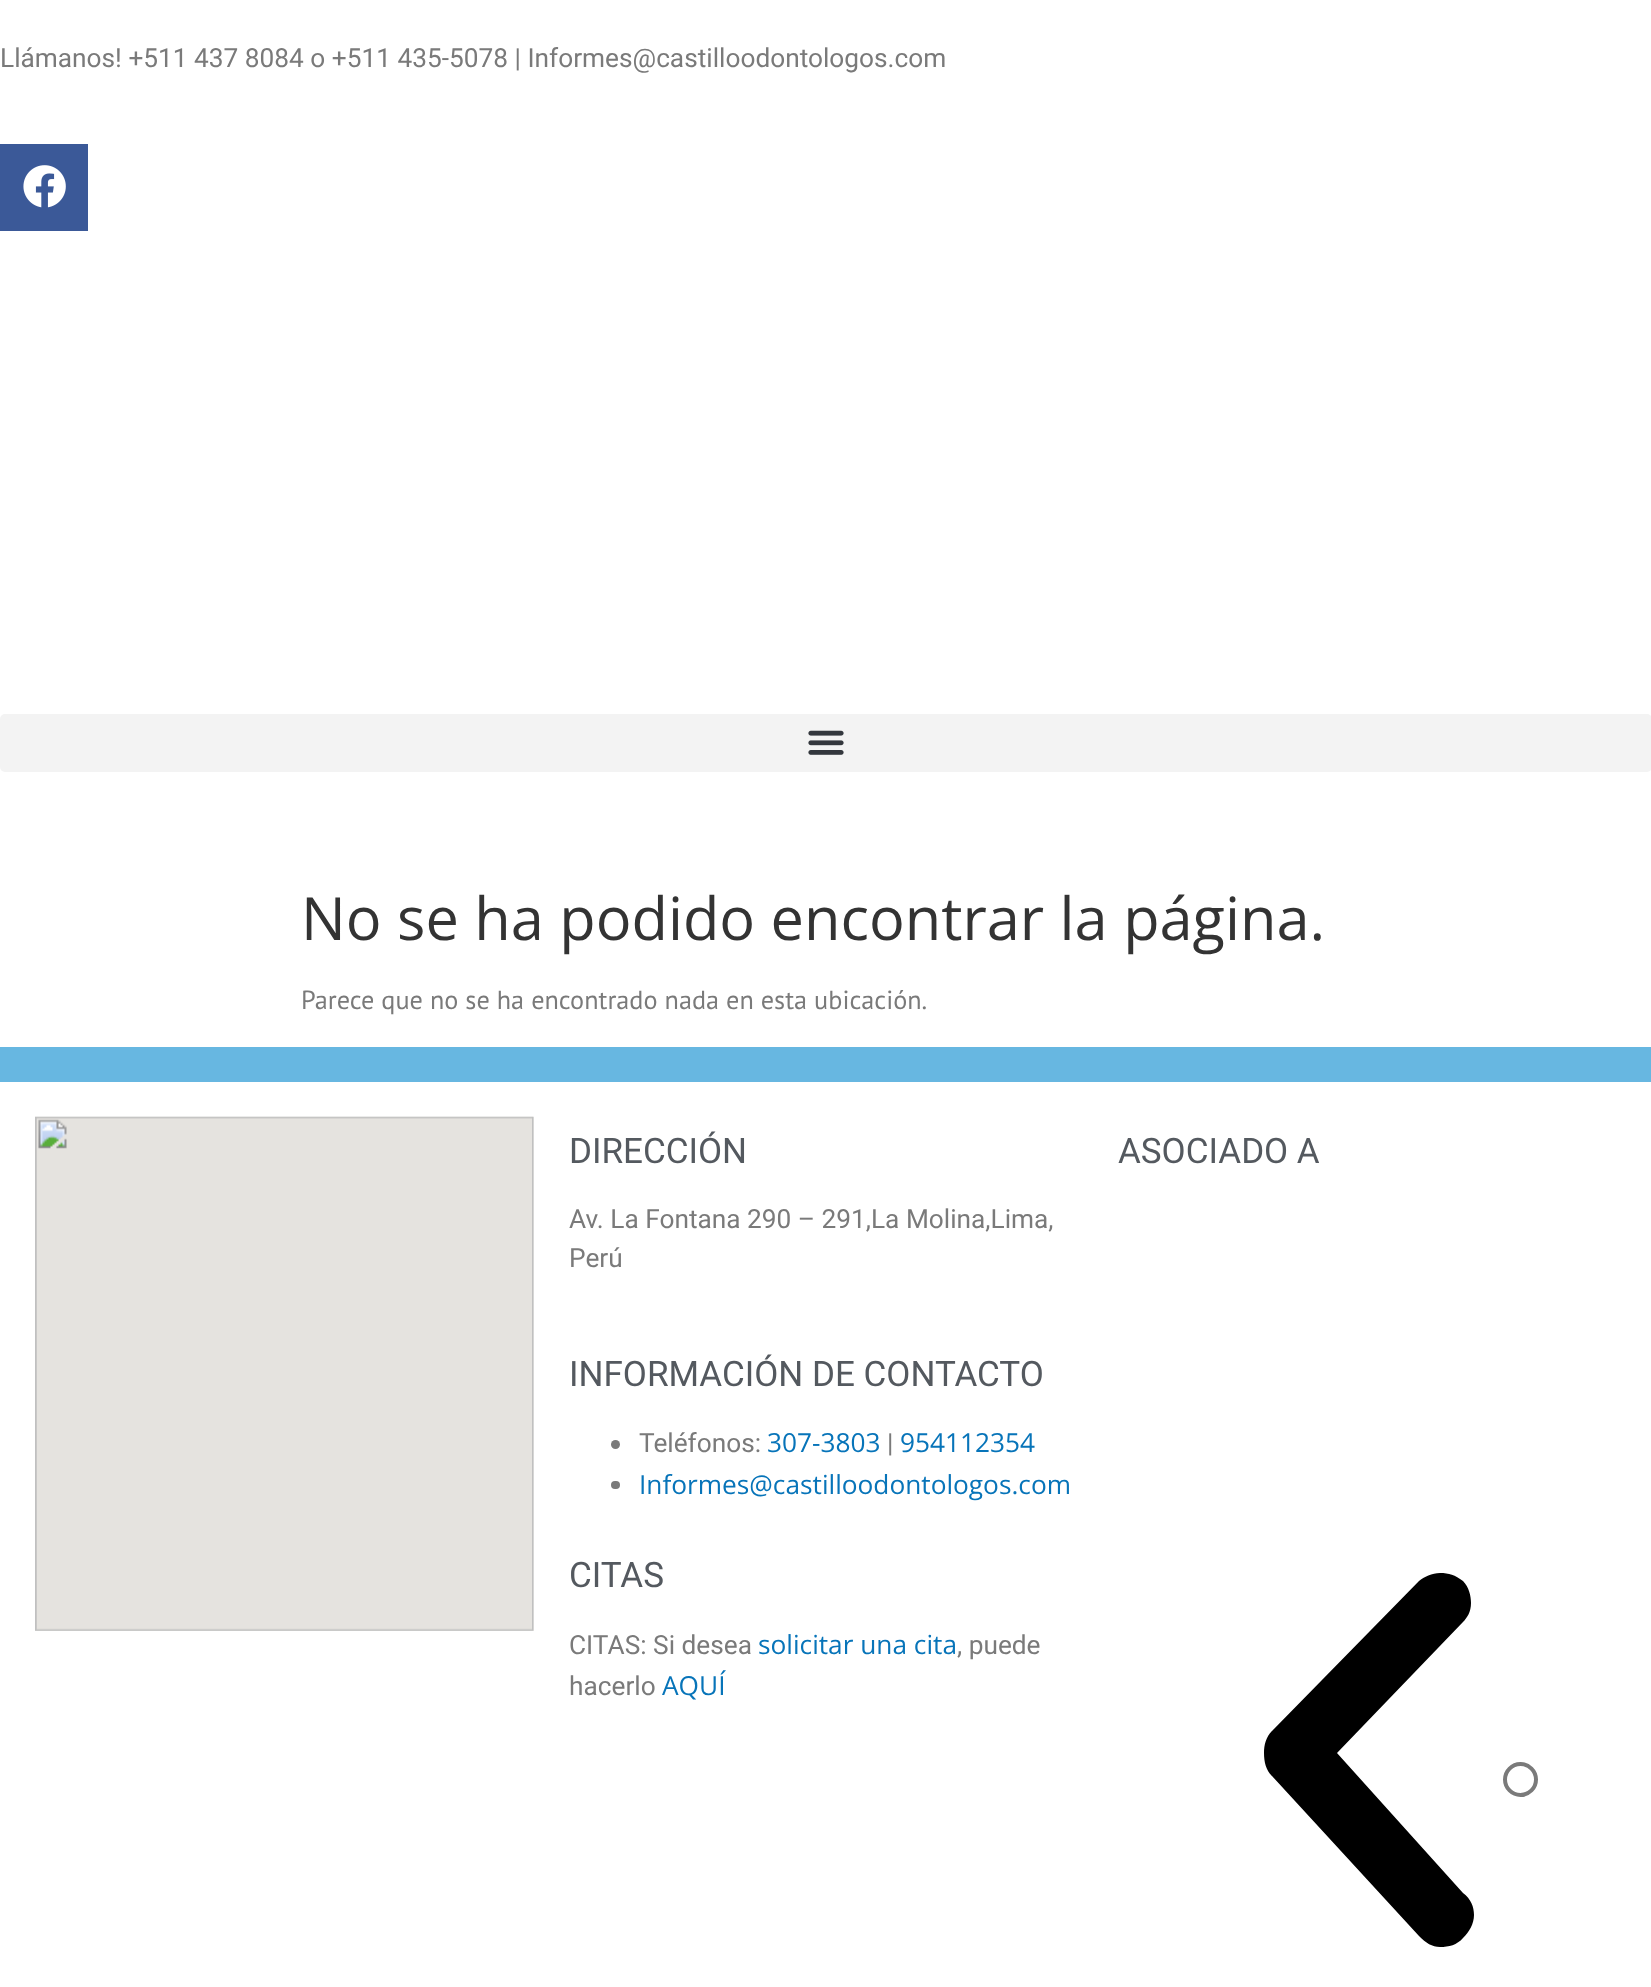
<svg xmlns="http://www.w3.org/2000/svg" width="1651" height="1987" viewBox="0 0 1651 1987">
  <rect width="100%" height="100%" fill="rgb(255,255,255)"/>
  <text x="0" y="67" font-family="Roboto" font-size="26.25" fill="rgb(122,122,122)">Llámanos! +511 437 8084 o +511 435-5078 | Informes@castilloodontologos.com</text>
  <rect x="0" y="144" width="88" height="87" fill="rgb(59,89,152)"/>
  <image x="23" y="165" width="43" height="43" href="pic1.png"/>
  <rect x="0" y="714" width="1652" height="58" rx="5" fill="rgb(243,243,243)"/>
  <image x="808" y="730" width="36" height="25" href="pic2.png"/>
  <text x="301" y="940" font-family="Open Sans" font-size="59.5" fill="rgb(51,51,51)">No se ha podido encontrar la página.</text>
  <text x="301" y="1009" font-family="PT Sans" font-size="26.25" fill="rgb(122,122,122)">Parece que no se ha encontrado nada en esta ubicación.</text>
  <rect x="0" y="1047" width="1651" height="35" fill="rgb(103,183,225)"/>
  <image x="35" y="1116" width="499" height="515" href="pic3.png"/>
  <text x="569" y="1163" font-family="Roboto" font-size="35" fill="rgb(84,89,95)">DIRECCIÓN</text>
  <g font-family="Roboto" font-size="26.25" fill="rgb(122,122,122)">
    <text>
      <tspan x="569" y="1228">Av. La Fontana 290 – 291,La Molina,Lima,</tspan>
      <tspan x="569" y="1267">Perú</tspan>
    </text>
  </g>
  <text x="569" y="1386" font-family="Roboto" font-size="35" fill="rgb(84,89,95)">INFORMACIÓN DE CONTACTO</text>
  <circle cx="615.5" cy="1444.5" r="4.5" fill="rgb(122,122,122)"/>
  <text x="639" y="1452" font-family="Roboto" font-size="26.25" fill="rgb(122,122,122)">Teléfonos:</text>
  <text x="767" y="1452" font-family="Open Sans" font-size="26.25" fill="rgb(7,116,185)">307-3803</text>
  <text x="887" y="1452" font-family="Roboto" font-size="26.25" fill="rgb(122,122,122)">|</text>
  <text x="900" y="1452" font-family="Open Sans" font-size="26.25" fill="rgb(7,116,185)">954112354</text>
  <rect x="611" y="1481" width="9" height="8" rx="4" fill="rgb(122,122,122)"/>
  <text x="639" y="1494" font-family="Open Sans" font-size="26.25" fill="rgb(7,116,185)">Informes@castilloodontologos.com</text>
  <text x="569" y="1587" font-family="Roboto" font-size="35" fill="rgb(84,89,95)">CITAS</text>
  <text x="569" y="1654" font-family="Roboto" font-size="26.25" fill="rgb(122,122,122)">CITAS: Si desea</text>
  <text x="758" y="1654" font-family="Open Sans" font-size="26.25" fill="rgb(7,116,185)">solicitar una cita</text>
  <g font-family="Roboto" font-size="26.25" fill="rgb(122,122,122)">
    <text x="957" y="1654">, puede</text>
    <text x="569" y="1695">hacerlo</text>
  </g>
  <text x="662" y="1695" font-family="Open Sans" font-size="26.25" fill="rgb(7,116,185)">AQUÍ</text>
  <text x="1118" y="1163" font-family="Roboto" font-size="35" fill="rgb(84,89,95)">ASOCIADO A</text>
  <path d="M1440 1573C1432 1573 1424 1577 1419 1581L1272 1731C1266 1737 1264 1745 1264 1753C1264 1762 1266 1770 1272 1776L1419 1936C1426 1943 1432 1947 1440 1947C1449 1947 1457 1945 1463 1938C1469 1932 1474 1924 1474 1915C1474 1907 1471 1899 1463 1893L1337 1753L1463 1622C1467 1618 1471 1612 1471 1603C1471 1596 1469 1587 1463 1581C1455 1575 1449 1573 1440 1573Z" fill="rgb(0,0,0)"/>
  <circle cx="1520.5" cy="1779.5" r="15.5" fill="none" stroke="rgb(122,122,122)" stroke-width="4"/>
</svg>
